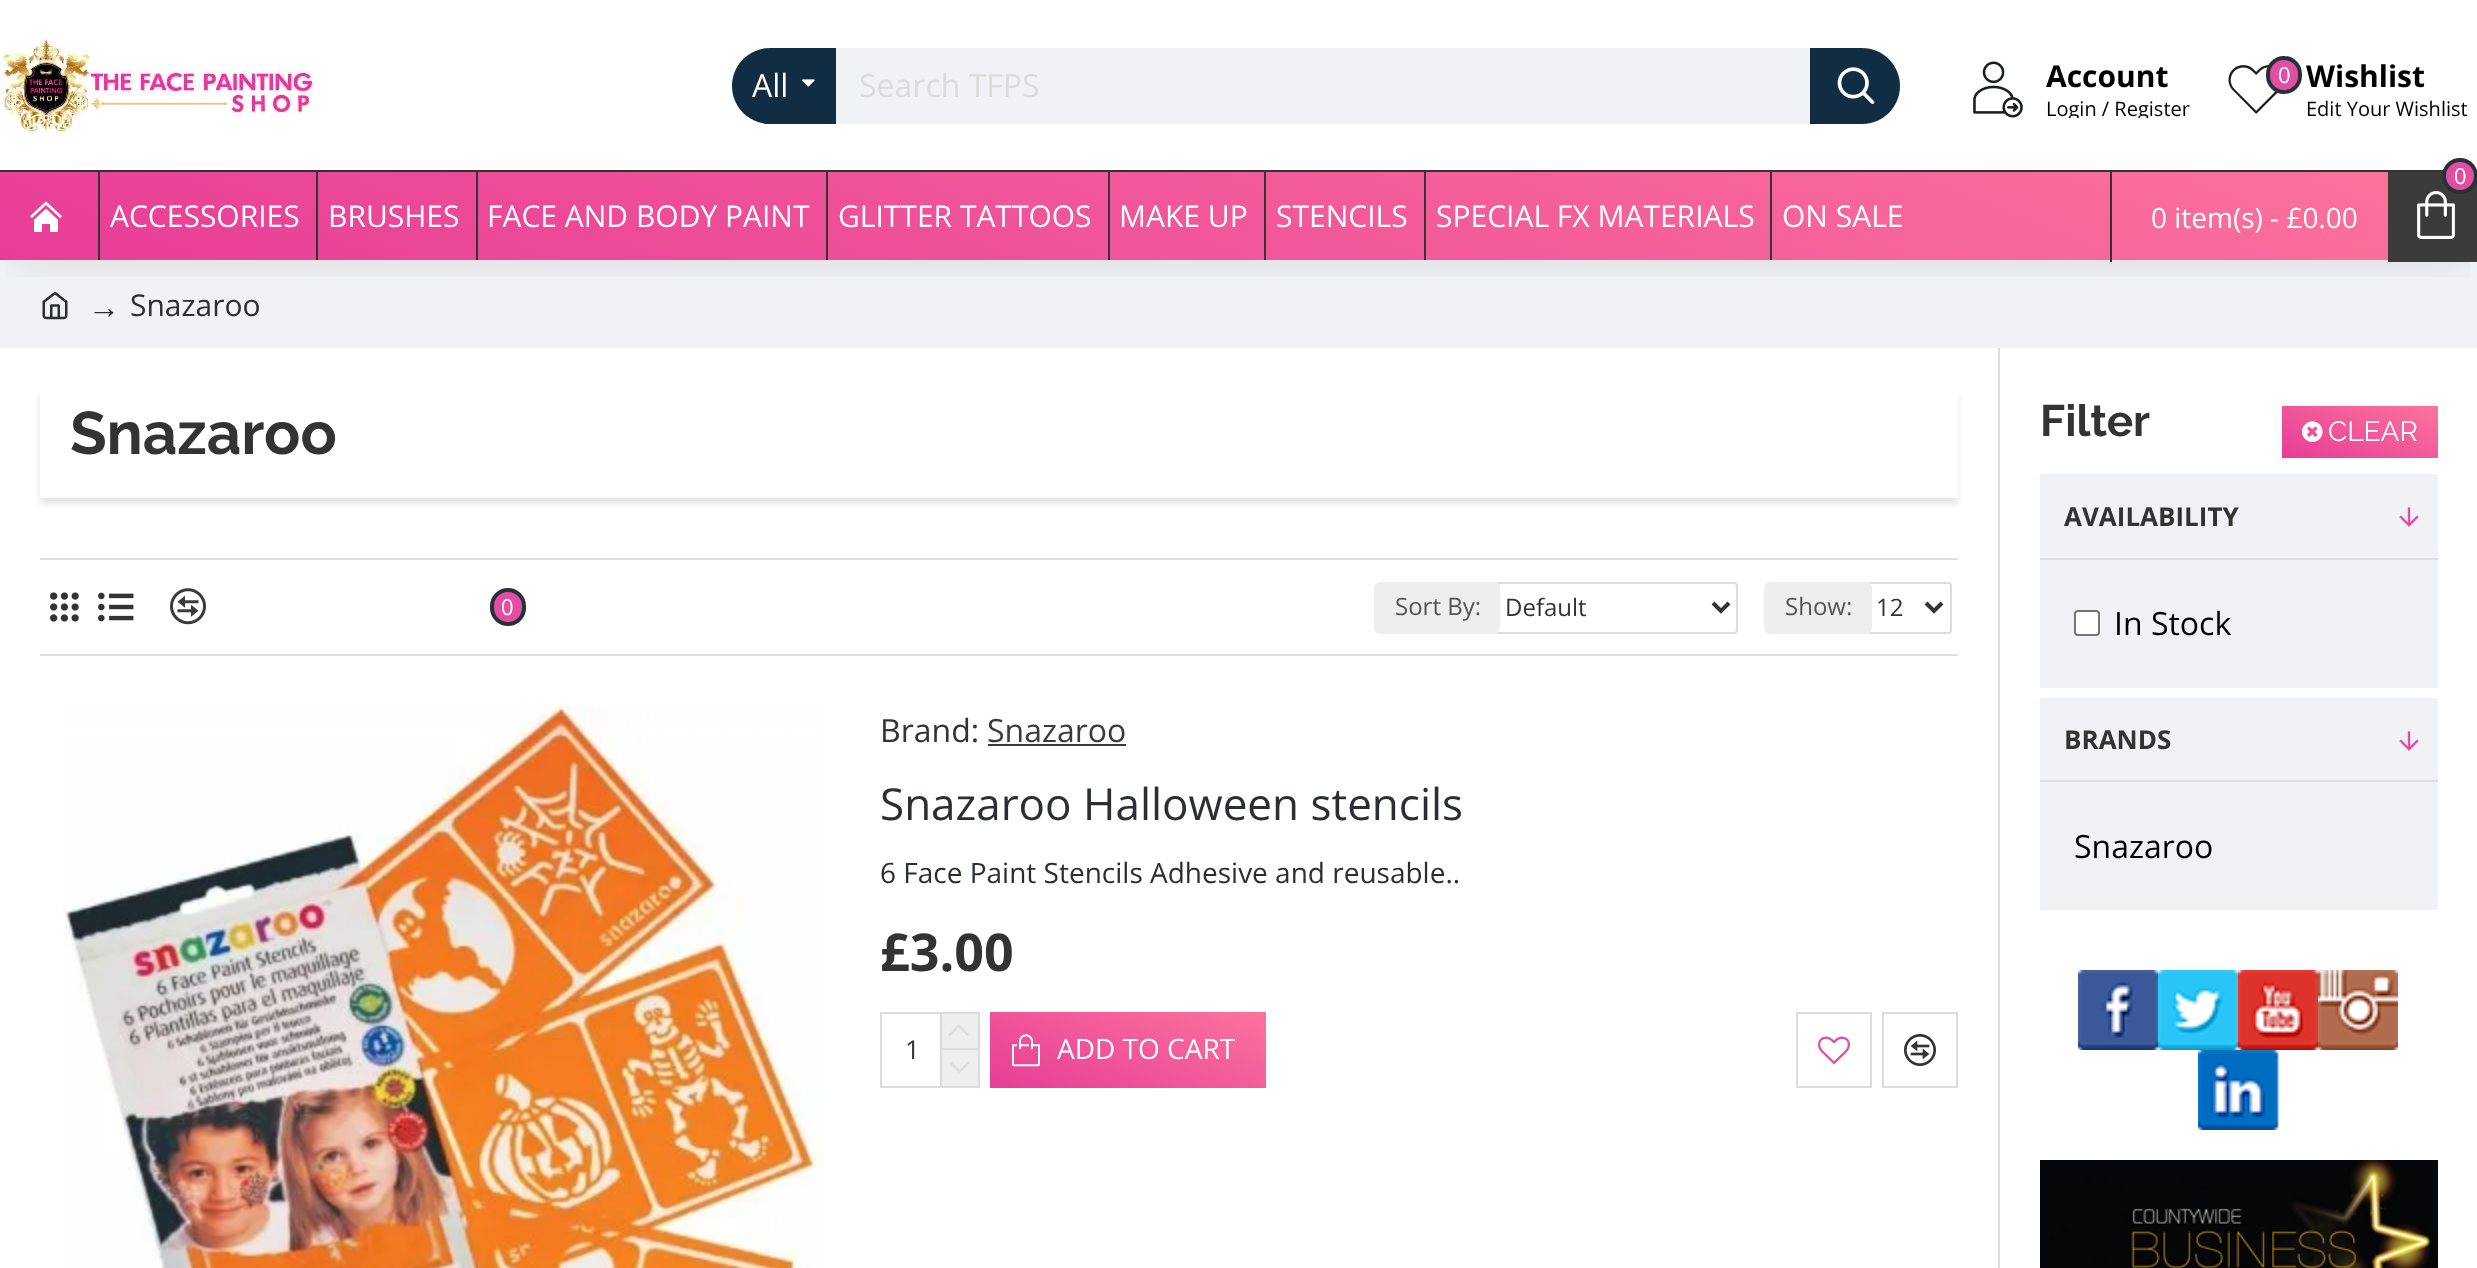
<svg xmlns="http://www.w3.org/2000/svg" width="2477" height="1268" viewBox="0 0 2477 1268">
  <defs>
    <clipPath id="clip1"><rect x="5" y="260" width="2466" height="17"/></clipPath>
    <clipPath id="clip2"><rect x="2046" y="52" width="144" height="66"/></clipPath>
    <linearGradient id="g1" gradientUnits="userSpaceOnUse" x1="1428" y1="-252" x2="1050" y2="684"><stop offset="0" stop-color="rgb(252,115,156)"/><stop offset="1" stop-color="rgb(231,61,151)"/></linearGradient>
    <clipPath id="clip3"><path d="M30 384H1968V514H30ZM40 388H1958V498H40Z" clip-rule="evenodd"/></clipPath>
    <linearGradient id="g2" gradientUnits="userSpaceOnUse" x1="1161" y1="969" x2="1095" y2="1131"><stop offset="0" stop-color="rgb(252,115,156)"/><stop offset="1" stop-color="rgb(231,61,151)"/></linearGradient>
    <linearGradient id="g3" gradientUnits="userSpaceOnUse" x1="2380" y1="383" x2="2340" y2="481"><stop offset="0" stop-color="rgb(252,115,156)"/><stop offset="1" stop-color="rgb(231,61,151)"/></linearGradient>
  </defs>
  <rect width="100%" height="100%" fill="rgb(255,255,255)"/>
  <rect x="0" y="260" width="2477" height="88" fill="rgb(240,242,245)"/>
  <image x="42" y="291" width="26" height="29" href="pic8.png"/>
  <g clip-path="url(#clip1)">
    <rect x="10" y="20" width="2458" height="240" fill="rgba(0,0,0,0.1)" filter="blur(20px)"/>
  </g>
  <image x="0" y="38" width="313" height="96" href="pic1.png"/>
  <path d="M770 48H836V124H770C749 124 732 107 732 86C732 65 749 48 770 48Z" fill="rgb(16,45,68)"/>
  <text x="752" y="97" font-family="Open Sans" font-size="32" fill="rgb(255,255,255)">All</text>
  <image x="802" y="79" width="13" height="8" href="pic2.png"/>
  <rect x="836" y="48" width="974" height="76" fill="rgb(240,242,245)"/>
  <text x="859" y="97" font-family="Open Sans" font-size="32" fill="rgb(219,220,219)">Search TFPS</text>
  <path d="M1810 48H1862C1883 48 1900 65 1900 86C1900 107 1883 124 1862 124H1810Z" fill="rgb(16,45,68)"/>
  <image x="1837" y="67" width="38" height="37" href="pic3.png"/>
  <image x="1973" y="61" width="50" height="57" href="pic4.png"/>
  <text x="2046" y="87" font-family="Open Sans" font-size="30" font-weight="bold" fill="rgb(0,0,0)">Account</text>
  <g clip-path="url(#clip2)">
    <text x="2046" y="116" font-family="Open Sans" font-size="20" fill="rgb(0,0,0)">Login / Register</text>
  </g>
  <image x="2228" y="65" width="50" height="49" href="pic5.png"/>
  <rect x="2268" y="58" width="32" height="34" rx="16" fill="rgb(224,79,164)" stroke="rgb(43,48,53)" stroke-width="4"/>
  <text x="2278" y="83" font-family="Open Sans" font-size="22" fill="rgb(255,255,255)">0</text>
  <text x="2306" y="87" font-family="Open Sans" font-size="30" font-weight="bold" fill="rgb(0,0,0)">Wishlist</text>
  <text x="2306" y="116" font-family="Open Sans" font-size="20" fill="rgb(0,0,0)">Edit Your Wishlist</text>
  <rect x="0" y="172" width="2388" height="88" fill="url(#g1)"/>
  <rect x="0" y="170" width="2443" height="2" fill="rgb(51,51,51)"/>
  <rect x="2110" y="170" width="2" height="92" fill="rgb(51,51,51)"/>
  <rect x="2388" y="172" width="89" height="90" fill="rgb(59,59,59)"/>
  <image x="2417" y="191" width="38" height="48" href="pic6.png"/>
  <circle cx="2460" cy="176" r="16" fill="rgb(224,79,164)" stroke="rgb(43,48,53)" stroke-width="4"/>
  <text x="2454" y="184" font-family="Open Sans" font-size="22" fill="rgb(255,255,255)">0</text>
  <text x="2151" y="228" font-family="Open Sans" font-size="28" fill="rgb(255,255,255)">0 item(s) - £0.00</text>
  <image x="30" y="201" width="32" height="31" href="pic7.png"/>
  <rect x="98" y="170" width="2" height="90" fill="rgb(53,53,53)"/>
  <text x="110" y="227" font-family="Open Sans" font-size="30" fill="rgb(255,255,255)">ACCESSORIES</text>
  <rect x="316" y="170" width="2" height="90" fill="rgb(53,53,53)"/>
  <text x="328" y="227" font-family="Open Sans" font-size="30" fill="rgb(255,255,255)">BRUSHES</text>
  <rect x="476" y="170" width="2" height="90" fill="rgb(53,53,53)"/>
  <text x="487" y="227" font-family="Open Sans" font-size="30" fill="rgb(255,255,255)">FACE AND BODY PAINT</text>
  <rect x="826" y="170" width="2" height="90" fill="rgb(53,53,53)"/>
  <text x="838" y="227" font-family="Open Sans" font-size="30" fill="rgb(255,255,255)">GLITTER TATTOOS</text>
  <rect x="1108" y="170" width="2" height="90" fill="rgb(53,53,53)"/>
  <text x="1119" y="227" font-family="Open Sans" font-size="30" fill="rgb(255,255,255)">MAKE UP</text>
  <rect x="1264" y="170" width="2" height="90" fill="rgb(53,53,53)"/>
  <text x="1276" y="227" font-family="Open Sans" font-size="30" fill="rgb(255,255,255)">STENCILS</text>
  <rect x="1424" y="170" width="2" height="90" fill="rgb(53,53,53)"/>
  <text x="1436" y="227" font-family="Open Sans" font-size="30" fill="rgb(255,255,255)">SPECIAL FX MATERIALS</text>
  <rect x="1770" y="170" width="2" height="90" fill="rgb(53,53,53)"/>
  <text x="1782" y="227" font-family="Open Sans" font-size="30" fill="rgb(255,255,255)">ON SALE</text>
  <text x="88" y="318" font-family="Liberation Serif" font-size="32" fill="rgb(43,47,51)">→</text>
  <text x="130" y="316" font-family="Open Sans" font-size="30" fill="rgb(43,47,51)">Snazaroo</text>
  <g clip-path="url(#clip3)">
    <rect x="40" y="394" width="1918" height="110" fill="rgba(0,0,0,0.1)" filter="blur(3px)"/>
  </g>
  <text x="70" y="454" font-family="Raleway" font-size="60" font-weight="bold" fill="rgb(51,51,51)">Snazaroo</text>
  <rect x="40" y="558" width="1918" height="2" fill="rgb(221,221,221)"/>
  <rect x="40" y="654" width="1918" height="2" fill="rgb(221,221,221)"/>
  <image x="50" y="592" width="29" height="30" href="pic9.png"/>
  <image x="98" y="592" width="36" height="30" href="pic10.png"/>
  <image x="170" y="588" width="36" height="37" href="pic11.png"/>
  <rect x="492" y="590" width="32" height="34" rx="16" fill="rgb(224,79,164)" stroke="rgb(43,48,53)" stroke-width="4"/>
  <text x="501" y="615" font-family="Open Sans" font-size="22" fill="rgb(255,255,255)">0</text>
  <rect x="1495" y="583" width="242" height="50" rx="3" fill="none" stroke="rgb(221,221,221)" stroke-width="2"/>
  <rect x="1374" y="582" width="126" height="52" rx="6" fill="rgb(238,238,238)"/>
  <text x="1395" y="615" font-family="Open Sans" font-size="24" fill="rgb(85,85,85)">Sort By:</text>
  <path d="M1713 603L1721 611L1729 603" fill="none" stroke="rgb(51,51,51)" stroke-width="4"/>
  <text x="1505" y="616" font-family="Open Sans" font-size="24" fill="rgb(51,51,51)">Default</text>
  <rect x="1867" y="583" width="84" height="50" rx="3" fill="none" stroke="rgb(221,221,221)" stroke-width="2"/>
  <rect x="1764" y="582" width="108" height="52" rx="6" fill="rgb(238,238,238)"/>
  <text x="1785" y="615" font-family="Open Sans" font-size="24" fill="rgb(85,85,85)">Show:</text>
  <path d="M1926 603L1934 611L1942 603" fill="none" stroke="rgb(51,51,51)" stroke-width="4"/>
  <text x="1876" y="616" font-family="Open Sans" font-size="24" fill="rgb(51,51,51)">12</text>
  <image x="62" y="706" width="762" height="562" href="pic12.png"/>
  <text x="880" y="742" font-family="Open Sans" font-size="32" fill="rgb(51,51,51)">Brand:</text>
  <text x="987" y="742" font-family="Open Sans" font-size="32" fill="rgb(59,59,59)">Snazaroo</text>
  <rect x="988" y="744" width="138" height="2" fill="rgb(59,59,59)"/>
  <text x="880" y="820" font-family="Open Sans" font-size="44" fill="rgb(43,47,51)">Snazaroo Halloween stencils</text>
  <text x="880" y="883" font-family="Open Sans" font-size="28" fill="rgb(43,47,51)">6 Face Paint Stencils Adhesive and reusable..</text>
  <text x="880" y="971" font-family="Open Sans" font-size="52" font-weight="bold" fill="rgb(51,51,51)">£3.00</text>
  <rect x="881" y="1013" width="98" height="74" fill="none" stroke="rgb(219,220,219)" stroke-width="2"/>
  <text x="905" y="1059" font-family="Open Sans" font-size="26" fill="rgb(51,51,51)">1</text>
  <rect x="940" y="1014" width="2" height="72" fill="rgb(219,220,219)"/>
  <rect x="942" y="1014" width="36" height="34" fill="rgb(238,238,238)"/>
  <rect x="942" y="1048" width="36" height="2" fill="rgb(219,220,219)"/>
  <image x="948" y="1024" width="21" height="12" href="pic13.png"/>
  <rect x="942" y="1050" width="36" height="36" fill="rgb(238,238,238)"/>
  <image x="949" y="1061" width="21" height="12" href="pic14.png"/>
  <rect x="990" y="1012" width="276" height="76" fill="url(#g2)"/>
  <image x="1012" y="1034" width="28" height="33" href="pic15.png"/>
  <text x="1057" y="1059" font-family="Open Sans" font-size="28" fill="rgb(255,255,255)">ADD TO CART</text>
  <rect x="1797" y="1013" width="74" height="74" fill="none" stroke="rgb(219,220,219)" stroke-width="2"/>
  <image x="1818" y="1036" width="32" height="28" href="pic16.png"/>
  <rect x="1883" y="1013" width="74" height="74" fill="none" stroke="rgb(219,220,219)" stroke-width="2"/>
  <image x="1904" y="1034" width="32" height="32" href="pic17.png"/>
  <rect x="1998" y="348" width="2" height="920" fill="rgb(221,221,221)"/>
  <text x="2040" y="436" font-family="Raleway" font-size="44" font-weight="bold" fill="rgb(51,51,51)">Filter</text>
  <rect x="2282" y="406" width="156" height="52" fill="url(#g3)"/>
  <image x="2302" y="421" width="21" height="21" href="pic18.png"/>
  <text x="2328" y="441" font-family="Raleway" font-size="28" fill="rgb(255,255,255)">CLEAR</text>
  <rect x="2040" y="474" width="398" height="84" fill="rgb(240,242,245)"/>
  <text x="2064" y="526" font-family="Open Sans" font-size="26" font-weight="bold" fill="rgb(51,51,51)">AVAILABILITY</text>
  <image x="2399" y="507" width="20" height="20" href="pic19.png"/>
  <rect x="2040" y="560" width="398" height="128" fill="rgb(240,242,245)"/>
  <rect x="2040" y="558" width="398" height="2" fill="rgb(221,221,221)"/>
  <rect x="2075" y="611" width="24" height="24" rx="3" fill="rgb(255,255,255)" stroke="rgb(118,118,118)" stroke-width="2"/>
  <text x="2114" y="635" font-family="Open Sans" font-size="32" fill="rgb(0,0,0)">In Stock</text>
  <rect x="2040" y="698" width="398" height="82" fill="rgb(240,242,245)"/>
  <text x="2064" y="749" font-family="Open Sans" font-size="26" font-weight="bold" fill="rgb(51,51,51)">BRANDS</text>
  <image x="2399" y="731" width="20" height="20" href="pic19.png"/>
  <rect x="2040" y="782" width="398" height="128" fill="rgb(240,242,245)"/>
  <rect x="2040" y="780" width="398" height="2" fill="rgb(221,221,221)"/>
  <text x="2074" y="858" font-family="Open Sans" font-size="32" fill="rgb(0,0,0)">Snazaroo</text>
  <image x="2078" y="970" width="80" height="80" href="pic20.png"/>
  <image x="2158" y="970" width="80" height="80" href="pic21.png"/>
  <image x="2238" y="970" width="80" height="80" href="pic22.png"/>
  <image x="2318" y="970" width="80" height="80" href="pic23.png"/>
  <image x="2198" y="1050" width="81" height="80" href="pic24.png"/>
  <image x="2040" y="1160" width="398" height="108" href="pic25.png"/>
</svg>
